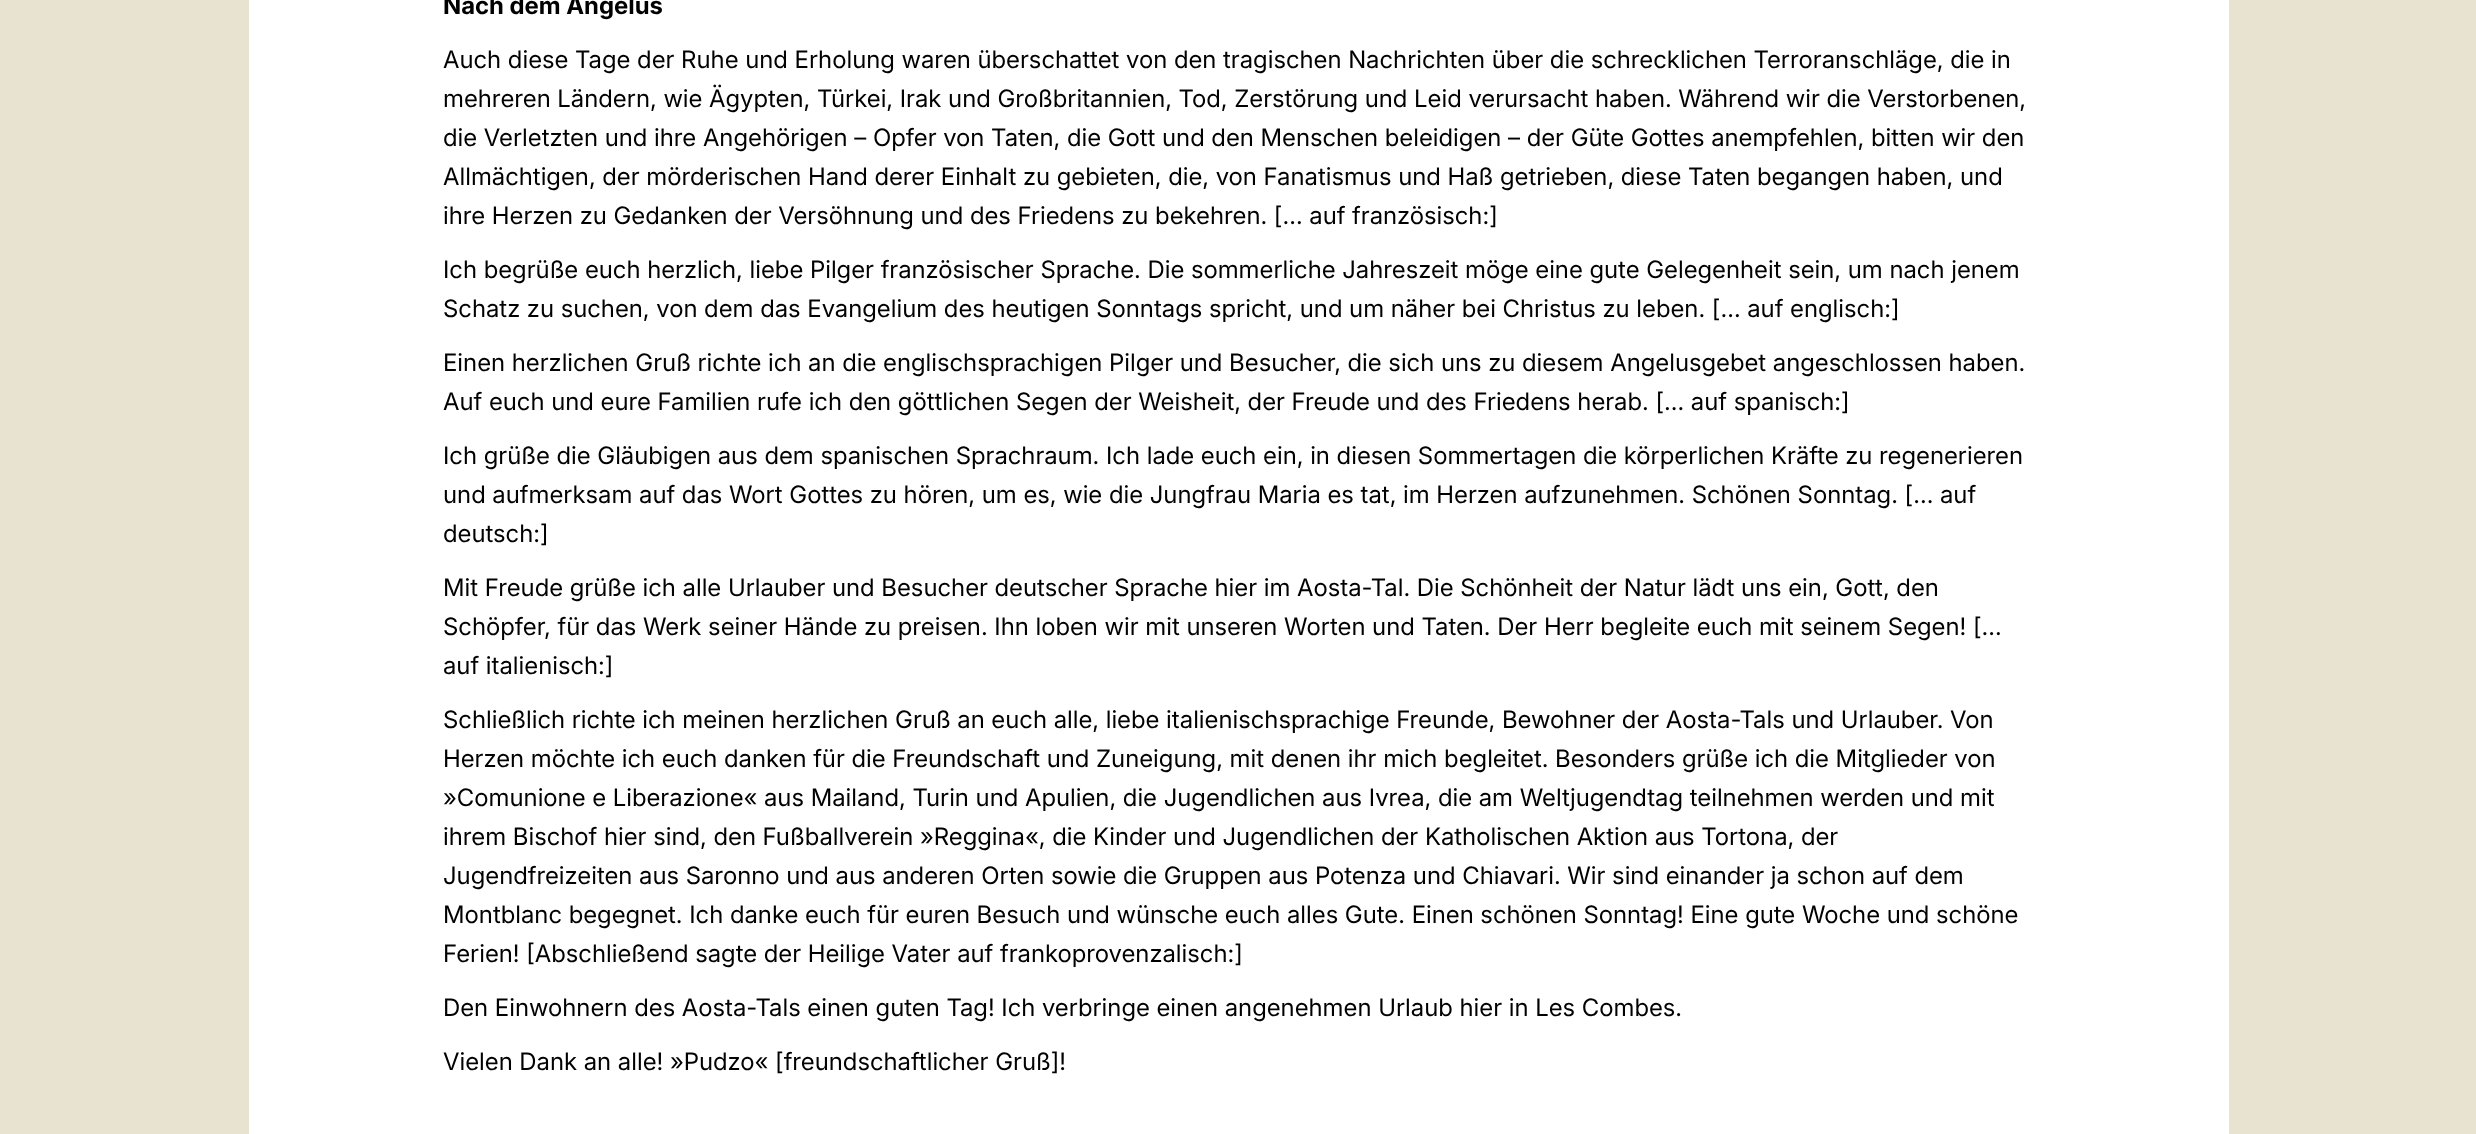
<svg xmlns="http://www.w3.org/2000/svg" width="2476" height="1134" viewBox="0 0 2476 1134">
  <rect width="100%" height="100%" fill="rgb(232,226,209)"/>
  <rect x="249" y="0" width="1980" height="1134" fill="rgb(255,255,255)"/>
  <text x="443" y="14" font-family="Inter" font-size="24" font-weight="bold" fill="rgb(0,0,0)">Nach dem Angelus</text>
  <g font-family="Inter" font-size="24" fill="rgb(0,0,0)">
    <text>
      <tspan x="443" y="68">Auch diese Tage der Ruhe und Erholung waren überschattet von den tragischen Nachrichten über die schrecklichen Terroranschläge, die in</tspan>
      <tspan x="443" y="107">mehreren Ländern, wie Ägypten, Türkei, Irak und Großbritannien, Tod, Zerstörung und Leid verursacht haben. Während wir die Verstorbenen,</tspan>
      <tspan x="443" y="146">die Verletzten und ihre Angehörigen – Opfer von Taten, die Gott und den Menschen beleidigen – der Güte Gottes anempfehlen, bitten wir den</tspan>
      <tspan x="443" y="185">Allmächtigen, der mörderischen Hand derer Einhalt zu gebieten, die, von Fanatismus und Haß getrieben, diese Taten begangen haben, und</tspan>
      <tspan x="443" y="224">ihre Herzen zu Gedanken der Versöhnung und des Friedens zu bekehren. [… auf französisch:]</tspan>
    </text>
    <text>
      <tspan x="443" y="278">Ich begrüße euch herzlich, liebe Pilger französischer Sprache. Die sommerliche Jahreszeit möge eine gute Gelegenheit sein, um nach jenem</tspan>
      <tspan x="443" y="317">Schatz zu suchen, von dem das Evangelium des heutigen Sonntags spricht, und um näher bei Christus zu leben. [… auf englisch:]</tspan>
    </text>
    <text>
      <tspan x="443" y="371">Einen herzlichen Gruß richte ich an die englischsprachigen Pilger und Besucher, die sich uns zu diesem Angelusgebet angeschlossen haben.</tspan>
      <tspan x="443" y="410">Auf euch und eure Familien rufe ich den göttlichen Segen der Weisheit, der Freude und des Friedens herab. [… auf spanisch:]</tspan>
    </text>
    <text>
      <tspan x="443" y="464">Ich grüße die Gläubigen aus dem spanischen Sprachraum. Ich lade euch ein, in diesen Sommertagen die körperlichen Kräfte zu regenerieren</tspan>
      <tspan x="443" y="503">und aufmerksam auf das Wort Gottes zu hören, um es, wie die Jungfrau Maria es tat, im Herzen aufzunehmen. Schönen Sonntag. [… auf</tspan>
      <tspan x="443" y="542">deutsch:]</tspan>
    </text>
    <text>
      <tspan x="443" y="596">Mit Freude grüße ich alle Urlauber und Besucher deutscher Sprache hier im Aosta-Tal. Die Schönheit der Natur lädt uns ein, Gott, den</tspan>
      <tspan x="443" y="635">Schöpfer, für das Werk seiner Hände zu preisen. Ihn loben wir mit unseren Worten und Taten. Der Herr begleite euch mit seinem Segen! […</tspan>
      <tspan x="443" y="674">auf italienisch:]</tspan>
    </text>
    <text>
      <tspan x="443" y="728">Schließlich richte ich meinen herzlichen Gruß an euch alle, liebe italienischsprachige Freunde, Bewohner der Aosta-Tals und Urlauber. Von</tspan>
      <tspan x="443" y="767">Herzen möchte ich euch danken für die Freundschaft und Zuneigung, mit denen ihr mich begleitet. Besonders grüße ich die Mitglieder von</tspan>
      <tspan x="443" y="806">»Comunione e Liberazione« aus Mailand, Turin und Apulien, die Jugendlichen aus Ivrea, die am Weltjugendtag teilnehmen werden und mit</tspan>
      <tspan x="443" y="845">ihrem Bischof hier sind, den Fußballverein »Reggina«, die Kinder und Jugendlichen der Katholischen Aktion aus Tortona, der</tspan>
      <tspan x="443" y="884">Jugendfreizeiten aus Saronno und aus anderen Orten sowie die Gruppen aus Potenza und Chiavari. Wir sind einander ja schon auf dem</tspan>
      <tspan x="443" y="923">Montblanc begegnet. Ich danke euch für euren Besuch und wünsche euch alles Gute. Einen schönen Sonntag! Eine gute Woche und schöne</tspan>
      <tspan x="443" y="962">Ferien! [Abschließend sagte der Heilige Vater auf frankoprovenzalisch:]</tspan>
    </text>
    <text x="443" y="1016">Den Einwohnern des Aosta-Tals einen guten Tag! Ich verbringe einen angenehmen Urlaub hier in Les Combes.</text>
    <text x="443" y="1070">Vielen Dank an alle! »Pudzo« [freundschaftlicher Gruß]!</text>
  </g>
</svg>
